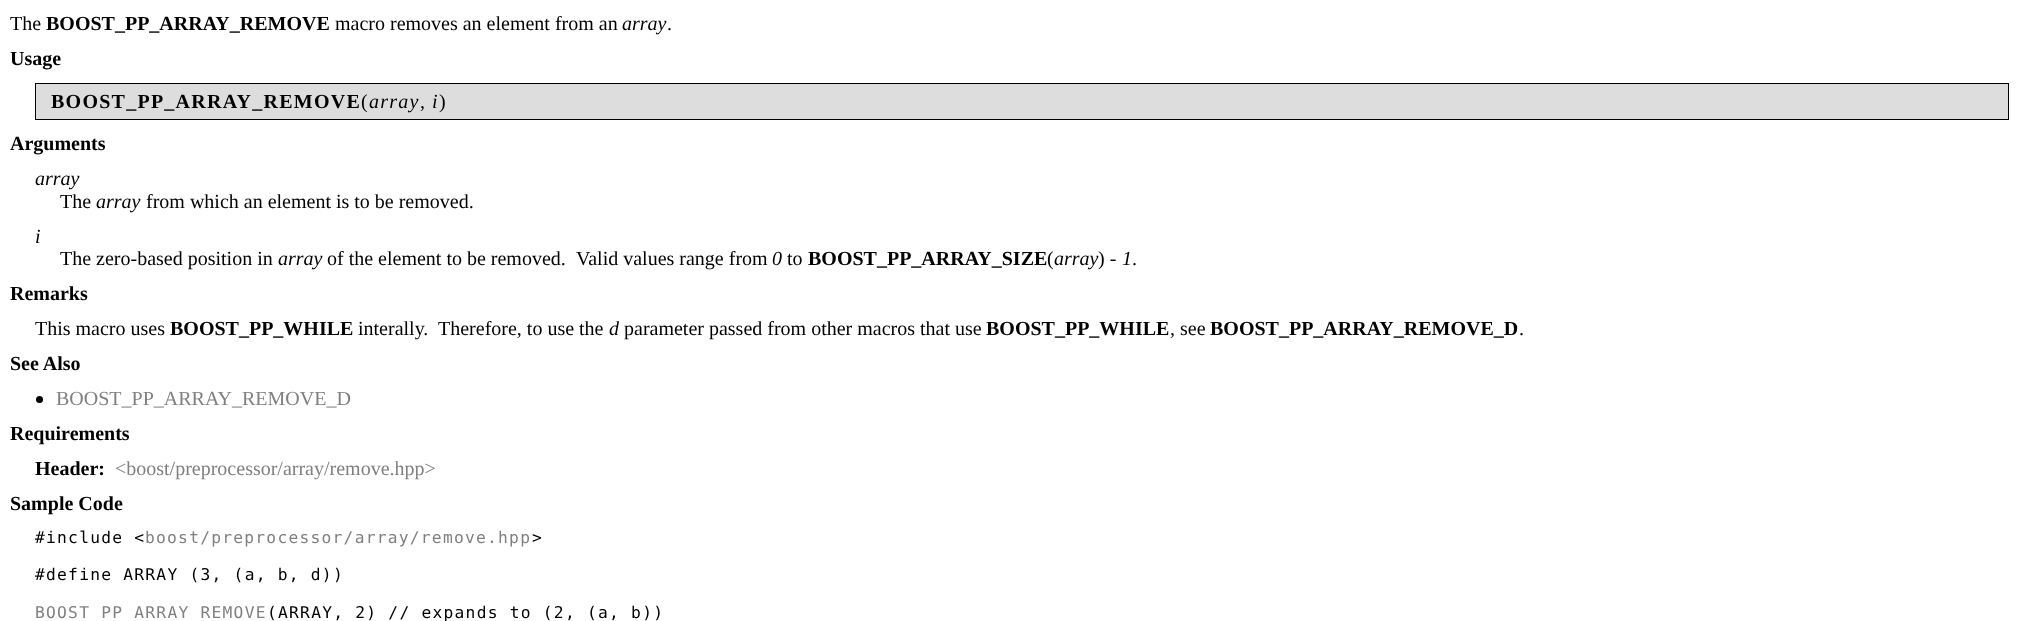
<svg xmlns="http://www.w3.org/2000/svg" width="2018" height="621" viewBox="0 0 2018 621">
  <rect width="100%" height="100%" fill="rgb(255,255,255)"/>
  <text x="10" y="30" font-family="Liberation Serif" font-size="20" fill="rgb(0,0,0)">The</text>
  <text x="46" y="30" font-family="Liberation Serif" font-size="20" font-weight="bold" fill="rgb(0,0,0)">BOOST_PP_ARRAY_REMOVE</text>
  <text x="335" y="30" font-family="Liberation Serif" font-size="20" fill="rgb(0,0,0)">macro removes an element from an</text>
  <text x="622" y="30" font-family="Liberation Serif" font-size="20" font-style="italic" fill="rgb(0,0,0)">array</text>
  <text x="667" y="30" font-family="Liberation Serif" font-size="20" fill="rgb(0,0,0)">.</text>
  <text x="10" y="65" font-family="Liberation Serif" font-size="20" font-weight="bold" fill="rgb(0,0,0)">Usage</text>
  <rect x="35.5" y="83.5" width="1973" height="36" fill="rgb(221,221,221)" stroke="rgb(0,0,0)"/>
  <text x="51" y="108" font-family="Liberation Serif" font-size="20" font-weight="bold" letter-spacing="1.25" fill="rgb(0,0,0)">BOOST_PP_ARRAY_REMOVE</text>
  <text x="361" y="108" font-family="Liberation Serif" font-size="20" letter-spacing="1.25" fill="rgb(0,0,0)">(</text>
  <text x="369" y="108" font-family="Liberation Serif" font-size="20" font-style="italic" letter-spacing="1.25" fill="rgb(0,0,0)">array</text>
  <text x="420" y="108" font-family="Liberation Serif" font-size="20" letter-spacing="1.25" fill="rgb(0,0,0)">,</text>
  <text x="432" y="108" font-family="Liberation Serif" font-size="20" font-style="italic" letter-spacing="1.25" fill="rgb(0,0,0)">i</text>
  <text x="439" y="108" font-family="Liberation Serif" font-size="20" letter-spacing="1.25" fill="rgb(0,0,0)">)</text>
  <text x="10" y="150" font-family="Liberation Serif" font-size="20" font-weight="bold" fill="rgb(0,0,0)">Arguments</text>
  <text x="35" y="185" font-family="Liberation Serif" font-size="20" font-style="italic" fill="rgb(0,0,0)">array</text>
  <text x="60" y="208" font-family="Liberation Serif" font-size="20" fill="rgb(0,0,0)">The</text>
  <text x="96" y="208" font-family="Liberation Serif" font-size="20" font-style="italic" fill="rgb(0,0,0)">array</text>
  <text x="146" y="208" font-family="Liberation Serif" font-size="20" fill="rgb(0,0,0)">from which an element is to be removed.</text>
  <text x="35" y="243" font-family="Liberation Serif" font-size="20" font-style="italic" fill="rgb(0,0,0)">i</text>
  <text x="60" y="265" font-family="Liberation Serif" font-size="20" fill="rgb(0,0,0)">The zero-based position in</text>
  <text x="278" y="265" font-family="Liberation Serif" font-size="20" font-style="italic" fill="rgb(0,0,0)">array</text>
  <g font-family="Liberation Serif" font-size="20" fill="rgb(0,0,0)">
    <text x="327" y="265">of the element to be removed.</text>
    <text x="576" y="265">Valid values range from</text>
  </g>
  <text x="772" y="265" font-family="Liberation Serif" font-size="20" font-style="italic" fill="rgb(0,0,0)">0</text>
  <text x="787" y="265" font-family="Liberation Serif" font-size="20" fill="rgb(0,0,0)">to</text>
  <text x="808" y="265" font-family="Liberation Serif" font-size="20" font-weight="bold" fill="rgb(0,0,0)">BOOST_PP_ARRAY_SIZE</text>
  <text x="1047" y="265" font-family="Liberation Serif" font-size="20" fill="rgb(0,0,0)">(</text>
  <text x="1054" y="265" font-family="Liberation Serif" font-size="20" font-style="italic" fill="rgb(0,0,0)">array</text>
  <text x="1098" y="265" font-family="Liberation Serif" font-size="20" fill="rgb(0,0,0)">) -</text>
  <text x="1122" y="265" font-family="Liberation Serif" font-size="20" font-style="italic" fill="rgb(0,0,0)">1</text>
  <text x="1132" y="265" font-family="Liberation Serif" font-size="20" fill="rgb(0,0,0)">.</text>
  <text x="10" y="300" font-family="Liberation Serif" font-size="20" font-weight="bold" fill="rgb(0,0,0)">Remarks</text>
  <text x="35" y="335" font-family="Liberation Serif" font-size="20" fill="rgb(0,0,0)">This macro uses</text>
  <text x="170" y="335" font-family="Liberation Serif" font-size="20" font-weight="bold" fill="rgb(0,0,0)">BOOST_PP_WHILE</text>
  <g font-family="Liberation Serif" font-size="20" fill="rgb(0,0,0)">
    <text x="358" y="335">interally.</text>
    <text x="438" y="335">Therefore, to use the</text>
  </g>
  <text x="609" y="335" font-family="Liberation Serif" font-size="20" font-style="italic" fill="rgb(0,0,0)">d</text>
  <text x="624" y="335" font-family="Liberation Serif" font-size="20" fill="rgb(0,0,0)">parameter passed from other macros that use</text>
  <text x="986" y="335" font-family="Liberation Serif" font-size="20" font-weight="bold" fill="rgb(0,0,0)">BOOST_PP_WHILE</text>
  <text x="1170" y="335" font-family="Liberation Serif" font-size="20" fill="rgb(0,0,0)">, see</text>
  <text x="1210" y="335" font-family="Liberation Serif" font-size="20" font-weight="bold" fill="rgb(0,0,0)">BOOST_PP_ARRAY_REMOVE_D</text>
  <text x="1519" y="335" font-family="Liberation Serif" font-size="20" fill="rgb(0,0,0)">.</text>
  <text x="10" y="370" font-family="Liberation Serif" font-size="20" font-weight="bold" fill="rgb(0,0,0)">See Also</text>
  <circle cx="39.5" cy="399.5" r="3.5" fill="rgb(0,0,0)"/>
  <text x="56" y="405" font-family="Liberation Serif" font-size="20" fill="rgb(128,128,128)">BOOST_PP_ARRAY_REMOVE_D</text>
  <g font-family="Liberation Serif" font-size="20" font-weight="bold" fill="rgb(0,0,0)">
    <text x="10" y="440">Requirements</text>
    <text x="35" y="475">Header:</text>
  </g>
  <text x="115" y="475" font-family="Liberation Serif" font-size="20" fill="rgb(128,128,128)">&lt;boost/preprocessor/array/remove.hpp&gt;</text>
  <text x="10" y="510" font-family="Liberation Serif" font-size="20" font-weight="bold" fill="rgb(0,0,0)">Sample Code</text>
  <text x="35" y="543" font-family="DejaVu Sans Mono" font-size="16.25" letter-spacing="1.25" fill="rgb(0,0,0)">#include &lt;</text>
  <text x="145" y="543" font-family="DejaVu Sans Mono" font-size="16.25" letter-spacing="1.25" fill="rgb(128,128,128)">boost/preprocessor/array/remove.hpp</text>
  <g font-family="DejaVu Sans Mono" font-size="16.25" letter-spacing="1.25" fill="rgb(0,0,0)">
    <text x="532" y="543">&gt;</text>
    <text x="35" y="580">#define ARRAY (3, (a, b, d))</text>
  </g>
  <text x="35" y="618" font-family="DejaVu Sans Mono" font-size="16.25" letter-spacing="1.25" fill="rgb(128,128,128)">BOOST_PP_ARRAY_REMOVE</text>
  <text x="267" y="618" font-family="DejaVu Sans Mono" font-size="16.25" letter-spacing="1.25" fill="rgb(0,0,0)">(ARRAY, 2) // expands to (2, (a, b))</text>
</svg>
